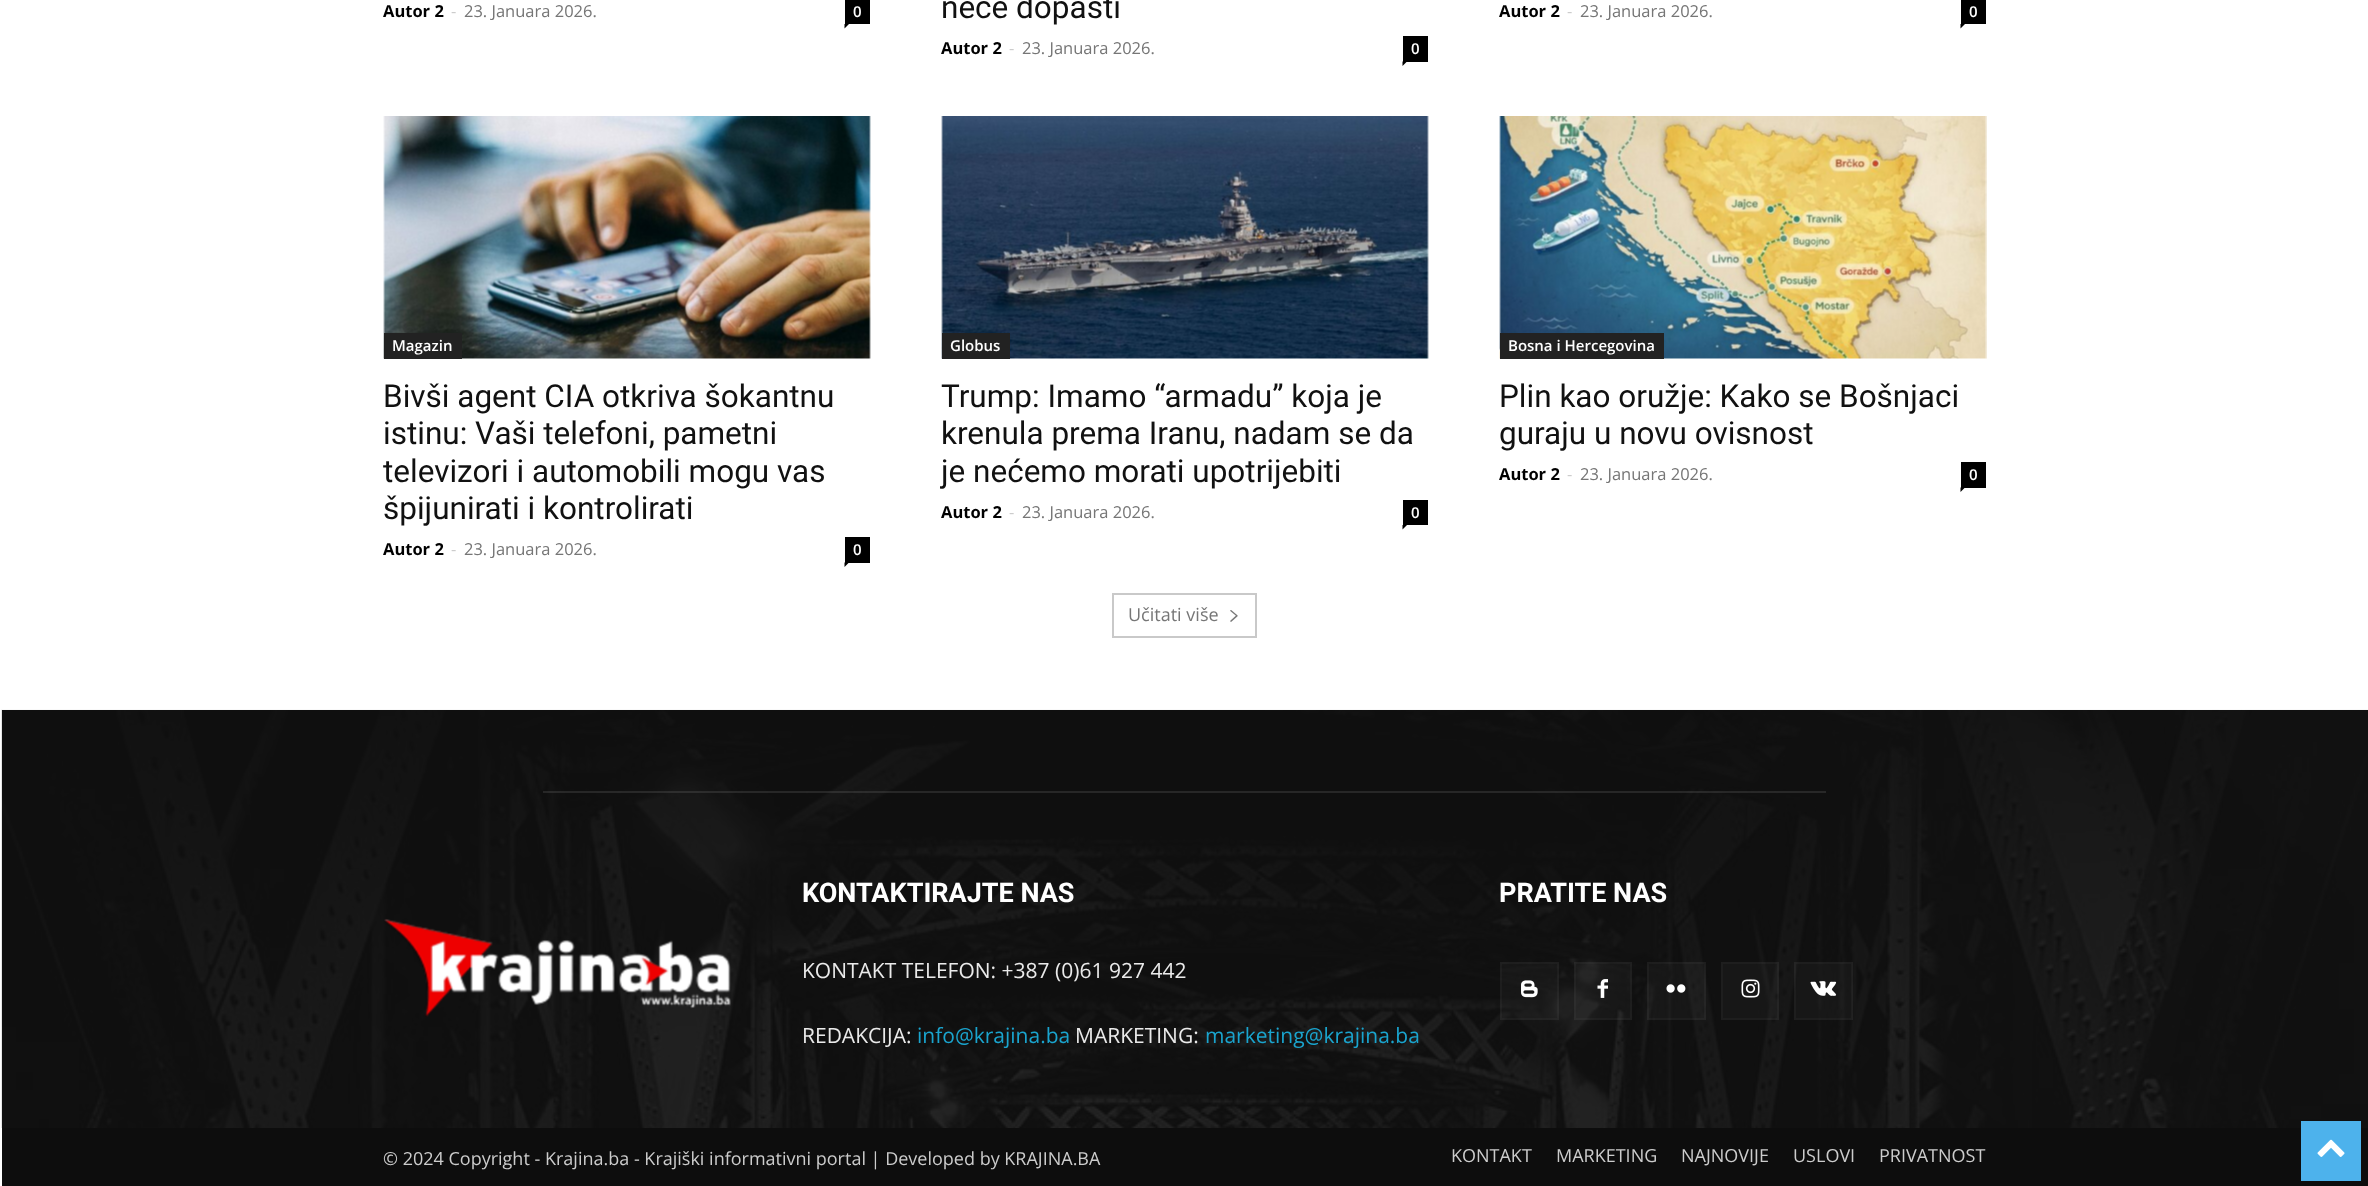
<svg xmlns="http://www.w3.org/2000/svg" width="2368" height="1186" viewBox="0 0 2368 1186">
  <rect width="100%" height="100%" fill="rgb(255,255,255)"/>
  <text x="383" y="17" font-family="Open Sans" font-size="16.5" font-weight="bold" fill="rgb(0,0,0)">Autor 2</text>
  <text x="451" y="17" font-family="Open Sans" font-size="16.5" fill="rgb(204,204,204)">-</text>
  <text x="464" y="17" font-family="Open Sans" font-size="16.5" fill="rgb(118,118,118)">23. Januara 2026.</text>
  <rect x="845" y="0" width="25" height="24" fill="rgb(0,0,0)"/>
  <text x="853" y="17" font-family="Open Sans" font-size="15" font-weight="600" fill="rgb(255,255,255)">0</text>
  <path d="M844.5 24H849L844.5 28.5Z" fill="rgb(0,0,0)"/>
  <text x="941" y="18" font-family="Roboto" font-size="31.5" fill="rgb(17,17,17)">neće dopasti</text>
  <text x="941" y="54" font-family="Open Sans" font-size="16.5" font-weight="bold" fill="rgb(0,0,0)">Autor 2</text>
  <text x="1009" y="54" font-family="Open Sans" font-size="16.5" fill="rgb(204,204,204)">-</text>
  <text x="1022" y="54" font-family="Open Sans" font-size="16.5" fill="rgb(118,118,118)">23. Januara 2026.</text>
  <rect x="1403" y="36" width="25" height="26" fill="rgb(0,0,0)"/>
  <text x="1411" y="54" font-family="Open Sans" font-size="15" font-weight="600" fill="rgb(255,255,255)">0</text>
  <path d="M1402.5 61.5H1407L1402.5 66Z" fill="rgb(0,0,0)"/>
  <text x="1499" y="17" font-family="Open Sans" font-size="16.5" font-weight="bold" fill="rgb(0,0,0)">Autor 2</text>
  <text x="1567" y="17" font-family="Open Sans" font-size="16.5" fill="rgb(204,204,204)">-</text>
  <text x="1580" y="17" font-family="Open Sans" font-size="16.5" fill="rgb(118,118,118)">23. Januara 2026.</text>
  <rect x="1961" y="0" width="25" height="24" fill="rgb(0,0,0)"/>
  <text x="1969" y="17" font-family="Open Sans" font-size="15" font-weight="600" fill="rgb(255,255,255)">0</text>
  <path d="M1960.5 24H1965L1960.5 28.5Z" fill="rgb(0,0,0)"/>
  <image x="383" y="116" width="488" height="243" href="pic1.png"/>
  <rect x="384" y="333" width="78" height="26" fill="rgb(34,34,34)"/>
  <text x="392" y="351" font-family="Open Sans" font-size="15" font-weight="600" fill="rgb(255,255,255)">Magazin</text>
  <g font-family="Roboto" font-size="31.5" fill="rgb(17,17,17)">
    <text>
      <tspan x="383" y="407">Bivši agent CIA otkriva šokantnu</tspan>
      <tspan x="383" y="444">istinu: Vaši telefoni, pametni</tspan>
      <tspan x="383" y="482">televizori i automobili mogu vas</tspan>
      <tspan x="383" y="519">špijunirati i kontrolirati</tspan>
    </text>
  </g>
  <text x="383" y="555" font-family="Open Sans" font-size="16.5" font-weight="bold" fill="rgb(0,0,0)">Autor 2</text>
  <text x="451" y="555" font-family="Open Sans" font-size="16.5" fill="rgb(204,204,204)">-</text>
  <text x="464" y="555" font-family="Open Sans" font-size="16.5" fill="rgb(118,118,118)">23. Januara 2026.</text>
  <rect x="845" y="537" width="25" height="26" fill="rgb(0,0,0)"/>
  <text x="853" y="555" font-family="Open Sans" font-size="15" font-weight="600" fill="rgb(255,255,255)">0</text>
  <path d="M844.5 562.5H849L844.5 567Z" fill="rgb(0,0,0)"/>
  <image x="941" y="116" width="488" height="243" href="pic2.png"/>
  <rect x="942" y="333" width="68" height="26" fill="rgb(34,34,34)"/>
  <text x="950" y="351" font-family="Open Sans" font-size="15" font-weight="600" fill="rgb(255,255,255)">Globus</text>
  <g font-family="Roboto" font-size="31.5" fill="rgb(17,17,17)">
    <text>
      <tspan x="941" y="407">Trump: Imamo “armadu” koja je</tspan>
      <tspan x="941" y="444">krenula prema Iranu, nadam se da</tspan>
      <tspan x="941" y="482">je nećemo morati upotrijebiti</tspan>
    </text>
  </g>
  <text x="941" y="518" font-family="Open Sans" font-size="16.5" font-weight="bold" fill="rgb(0,0,0)">Autor 2</text>
  <text x="1009" y="518" font-family="Open Sans" font-size="16.5" fill="rgb(204,204,204)">-</text>
  <text x="1022" y="518" font-family="Open Sans" font-size="16.5" fill="rgb(118,118,118)">23. Januara 2026.</text>
  <rect x="1403" y="500" width="25" height="25" fill="rgb(0,0,0)"/>
  <text x="1411" y="518" font-family="Open Sans" font-size="15" font-weight="600" fill="rgb(255,255,255)">0</text>
  <path d="M1402.5 525H1407L1402.5 529.5Z" fill="rgb(0,0,0)"/>
  <image x="1499" y="116" width="488" height="243" href="pic3.png"/>
  <rect x="1500" y="333" width="164" height="26" fill="rgb(34,34,34)"/>
  <text x="1508" y="351" font-family="Open Sans" font-size="15" font-weight="600" fill="rgb(255,255,255)">Bosna i Hercegovina</text>
  <g font-family="Roboto" font-size="31.5" fill="rgb(17,17,17)">
    <text>
      <tspan x="1499" y="407">Plin kao oružje: Kako se Bošnjaci</tspan>
      <tspan x="1499" y="444">guraju u novu ovisnost</tspan>
    </text>
  </g>
  <text x="1499" y="480" font-family="Open Sans" font-size="16.5" font-weight="bold" fill="rgb(0,0,0)">Autor 2</text>
  <text x="1567" y="480" font-family="Open Sans" font-size="16.5" fill="rgb(204,204,204)">-</text>
  <text x="1580" y="480" font-family="Open Sans" font-size="16.5" fill="rgb(118,118,118)">23. Januara 2026.</text>
  <rect x="1961" y="462" width="25" height="26" fill="rgb(0,0,0)"/>
  <text x="1969" y="480" font-family="Open Sans" font-size="15" font-weight="600" fill="rgb(255,255,255)">0</text>
  <path d="M1960.5 487.5H1965L1960.5 492Z" fill="rgb(0,0,0)"/>
  <rect x="1113" y="594" width="143" height="43" fill="none" stroke="rgb(201,201,201)" stroke-width="2"/>
  <text x="1128" y="621" font-family="Open Sans" font-size="18" fill="rgb(118,118,118)">Učitati više</text>
  <image x="1230" y="610" width="8" height="12" href="pic4.png"/>
  <rect x="2" y="710" width="2366" height="418" fill="rgb(17,17,17)"/>
  <image x="1" y="709" width="2367" height="419" href="pic5.png"/>
  <rect x="543" y="791" width="1283" height="2" fill="rgba(255,255,255,0.1)"/>
  <text x="802" y="902" font-family="Roboto" font-size="27" font-weight="bold" fill="rgb(255,255,255)">KONTAKTIRAJTE NAS</text>
  <g font-family="Open Sans" font-size="21" fill="rgb(234,234,234)">
    <text x="802" y="978">KONTAKT TELEFON: +387 (0)61 927 442</text>
    <text x="802" y="1043">REDAKCIJA:</text>
  </g>
  <text x="917" y="1043" font-family="Open Sans" font-size="21" fill="rgb(26,164,206)">info@krajina.ba</text>
  <text x="1075" y="1043" font-family="Open Sans" font-size="21" fill="rgb(234,234,234)">MARKETING:</text>
  <text x="1205" y="1043" font-family="Open Sans" font-size="21" fill="rgb(26,164,206)">marketing@krajina.ba</text>
  <text x="1499" y="902" font-family="Roboto" font-size="27" font-weight="bold" fill="rgb(255,255,255)">PRATITE NAS</text>
  <rect x="1500" y="962" width="59" height="58" fill="rgba(255,255,255,0.03)"/>
  <rect x="1501" y="963" width="57" height="56" fill="none" stroke="rgba(255,255,255,0.03)" stroke-width="2"/>
  <image x="1521" y="980" width="17" height="18" href="pic6.png"/>
  <rect x="1574" y="962" width="58" height="58" fill="rgba(255,255,255,0.03)"/>
  <rect x="1575" y="963" width="56" height="56" fill="none" stroke="rgba(255,255,255,0.03)" stroke-width="2"/>
  <image x="1597" y="979" width="11" height="19" href="pic7.png"/>
  <rect x="1647" y="962" width="59" height="58" fill="rgba(255,255,255,0.03)"/>
  <rect x="1648" y="963" width="57" height="56" fill="none" stroke="rgba(255,255,255,0.03)" stroke-width="2"/>
  <image x="1666" y="984" width="20" height="9" href="pic8.png"/>
  <rect x="1721" y="962" width="58" height="58" fill="rgba(255,255,255,0.03)"/>
  <rect x="1722" y="963" width="56" height="56" fill="none" stroke="rgba(255,255,255,0.03)" stroke-width="2"/>
  <image x="1741" y="979" width="19" height="19" href="pic9.png"/>
  <rect x="1794" y="962" width="59" height="58" fill="rgba(255,255,255,0.03)"/>
  <rect x="1795" y="963" width="57" height="56" fill="none" stroke="rgba(255,255,255,0.03)" stroke-width="2"/>
  <image x="1810" y="981" width="27" height="15" href="pic10.png"/>
  <image x="384" y="919" width="347" height="98" href="pic11.png"/>
  <rect x="2" y="1128" width="2366" height="58" fill="rgb(13,13,13)"/>
  <g font-family="Open Sans" font-size="18" fill="rgb(204,204,204)">
    <text x="383" y="1165">© 2024 Copyright - Krajina.ba - Krajiški informativni portal | Developed by KRAJINA.BA</text>
    <text x="1451" y="1162">KONTAKT</text>
    <text x="1556" y="1162">MARKETING</text>
    <text x="1681" y="1162">NAJNOVIJE</text>
    <text x="1793" y="1162">USLOVI</text>
    <text x="1879" y="1162">PRIVATNOST</text>
  </g>
  <rect x="2301" y="1121" width="60" height="60" fill="rgb(77,178,236)"/>
  <image x="2317" y="1139" width="28" height="18" href="pic12.png"/>
</svg>
